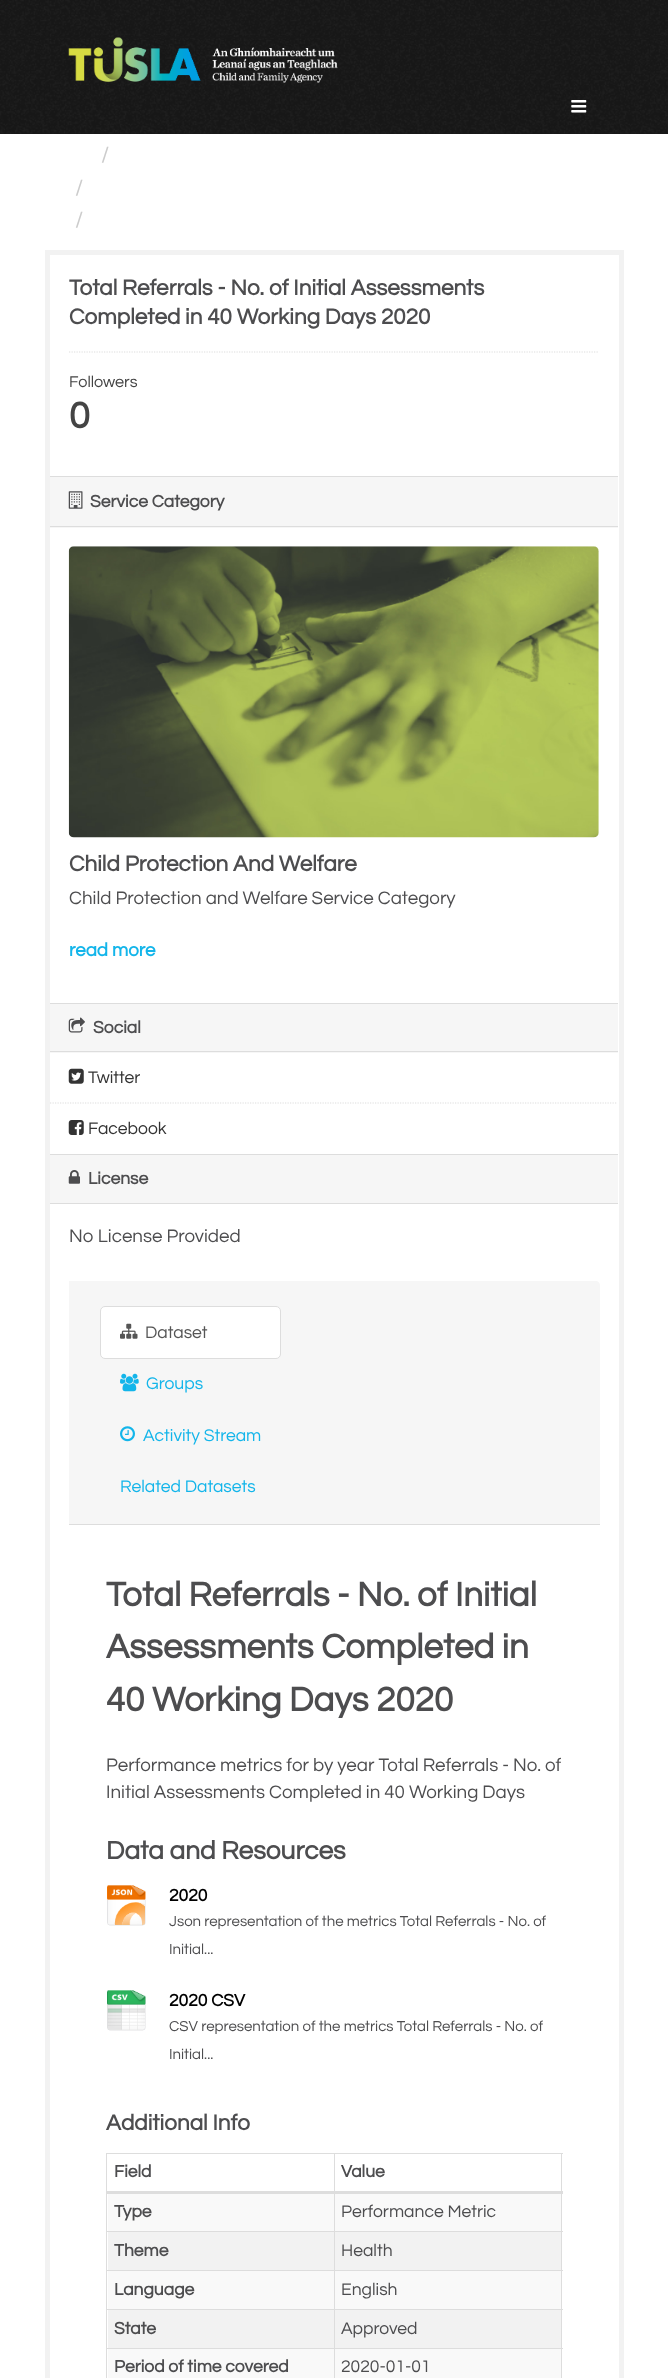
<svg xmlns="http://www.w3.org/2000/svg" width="668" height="2378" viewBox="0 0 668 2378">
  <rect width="100%" height="100%" fill="rgb(255,255,255)"/>
  <rect x="0" y="0" width="668" height="134" fill="rgb(24,24,24)"/>
  <image x="0" y="0" width="668" height="37" href="pic1.png"/>
  <image x="0" y="38" width="668" height="96" href="pic2.png"/>
  <image x="68" y="37" width="270" height="46" href="pic3.png"/>
  <image x="571" y="100" width="16" height="13" href="pic4.png"/>
  <g font-family="Questrial" font-size="22.5" fill="rgb(204,204,204)">
    <text x="101" y="162">/</text>
    <text>
      <tspan x="75" y="195">/</tspan>
      <tspan x="75" y="227">/</tspan>
    </text>
  </g>
  <rect x="47.5" y="252.5" width="574" height="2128" fill="none" stroke="rgb(242,242,242)" stroke-width="5"/>
  <g font-family="Questrial" font-size="22.5" font-weight="bold" fill="rgb(77,77,79)">
    <text>
      <tspan x="69" y="295">Total Referrals - No. of Initial Assessments</tspan>
      <tspan x="69" y="324">Completed in 40 Working Days 2020</tspan>
    </text>
  </g>
  <path d="M69 352H599" fill="none" stroke="rgb(221,221,221)" stroke-width="1.2" stroke-dasharray="1.25 1.25"/>
  <text x="69" y="387" font-family="Questrial" font-size="16.25" fill="rgb(68,68,68)">Followers</text>
  <text x="69" y="428" font-family="Questrial" font-size="38" font-weight="bold" fill="rgb(68,68,68)">0</text>
  <rect x="50" y="477" width="568" height="51" fill="rgb(246,246,246)"/>
  <rect x="50" y="476" width="568" height="1" fill="rgb(221,221,221)"/>
  <rect x="50" y="526" width="568" height="1" fill="rgb(221,221,221)"/>
  <image x="68" y="491" width="15" height="18" href="pic5.png"/>
  <text x="90" y="507" font-family="Questrial" font-size="17.5" font-weight="bold" fill="rgb(77,77,79)">Service Category</text>
  <image x="68" y="546" width="531" height="292" href="pic6.png"/>
  <text x="69" y="871" font-family="Questrial" font-size="22.5" font-weight="bold" fill="rgb(77,77,79)">Child Protection And Welfare</text>
  <text x="69" y="904" font-family="Questrial" font-size="18.75" fill="rgb(77,77,79)">Child Protection and Welfare Service Category</text>
  <text x="69" y="956" font-family="Questrial" font-size="18.75" font-weight="bold" fill="rgb(19,181,234)">read more</text>
  <rect x="50" y="1004" width="568" height="49" fill="rgb(246,246,246)"/>
  <rect x="50" y="1003" width="568" height="1" fill="rgb(221,221,221)"/>
  <rect x="50" y="1051" width="568" height="1" fill="rgb(221,221,221)"/>
  <image x="68" y="1017" width="17" height="16" href="pic7.png"/>
  <text x="93" y="1033" font-family="Questrial" font-size="17.5" font-weight="bold" fill="rgb(77,77,79)">Social</text>
  <path d="M50 1103H617.5" fill="none" stroke="rgb(221,221,221)" stroke-width="1.2" stroke-dasharray="1.25 1.25"/>
  <image x="68" y="1068" width="16" height="16" href="pic8.png"/>
  <text x="88" y="1083" font-family="Questrial" font-size="17.5" fill="rgb(51,51,51)">Twitter</text>
  <image x="68" y="1120" width="16" height="15" href="pic9.png"/>
  <text x="88" y="1134" font-family="Questrial" font-size="17.5" fill="rgb(51,51,51)">Facebook</text>
  <rect x="50" y="1155" width="568" height="48" fill="rgb(246,246,246)"/>
  <rect x="50" y="1154" width="568" height="1" fill="rgb(221,221,221)"/>
  <rect x="50" y="1203" width="568" height="1" fill="rgb(221,221,221)"/>
  <image x="68" y="1170" width="12" height="14" href="pic10.png"/>
  <text x="88" y="1184" font-family="Questrial" font-size="17.5" font-weight="bold" fill="rgb(77,77,79)">License</text>
  <text x="69" y="1242" font-family="Questrial" font-size="18.75" fill="rgb(77,77,79)">No License Provided</text>
  <path d="M69 1281H596C598 1281 600 1283 600 1285V1525H69Z" fill="rgb(246,246,246)"/>
  <rect x="69" y="1524" width="531" height="1" fill="rgb(221,221,221)"/>
  <rect x="100.5" y="1306.5" width="180" height="52" rx="4.5" fill="rgb(255,255,255)" stroke="rgb(221,221,221)"/>
  <image x="120" y="1323" width="18" height="16" href="pic11.png"/>
  <text x="145" y="1338" font-family="Questrial" font-size="17.5" fill="rgb(85,85,85)">Dataset</text>
  <image x="120" y="1373" width="19" height="19" href="pic12.png"/>
  <text x="146" y="1389" font-family="Questrial" font-size="17.5" fill="rgb(19,181,234)">Groups</text>
  <image x="120" y="1426" width="15" height="16" href="pic13.png"/>
  <g font-family="Questrial" font-size="17.5" fill="rgb(19,181,234)">
    <text x="143" y="1441">Activity Stream</text>
    <text x="120" y="1492">Related Datasets</text>
  </g>
  <g font-family="Questrial" font-size="35" font-weight="bold" fill="rgb(77,77,79)">
    <text>
      <tspan x="106" y="1606">Total Referrals - No. of Initial</tspan>
      <tspan x="106" y="1658">Assessments Completed in</tspan>
      <tspan x="106" y="1711">40 Working Days 2020</tspan>
    </text>
  </g>
  <g font-family="Questrial" font-size="18.75" fill="rgb(77,77,79)">
    <text>
      <tspan x="106" y="1771">Performance metrics for by year Total Referrals - No. of</tspan>
      <tspan x="106" y="1798">Initial Assessments Completed in 40 Working Days</tspan>
    </text>
  </g>
  <text x="106" y="1859" font-family="Questrial" font-size="26.25" font-weight="bold" fill="rgb(77,77,79)">Data and Resources</text>
  <image x="107" y="1885" width="39" height="41" href="pic14.png"/>
  <text x="169" y="1901" font-family="Questrial" font-size="17.5" font-weight="bold" fill="rgb(0,0,0)">2020</text>
  <g font-family="Questrial" font-size="15" fill="rgb(77,77,79)">
    <text>
      <tspan x="169" y="1926">Json representation of the metrics Total Referrals - No. of</tspan>
      <tspan x="169" y="1954">Initial...</tspan>
    </text>
  </g>
  <image x="107" y="1990" width="39" height="41" href="pic15.png"/>
  <text x="169" y="2006" font-family="Questrial" font-size="17.5" font-weight="bold" fill="rgb(0,0,0)">2020 CSV</text>
  <g font-family="Questrial" font-size="15" fill="rgb(77,77,79)">
    <text>
      <tspan x="169" y="2031">CSV representation of the metrics Total Referrals - No. of</tspan>
      <tspan x="169" y="2059">Initial...</tspan>
    </text>
  </g>
  <text x="106" y="2130" font-family="Questrial" font-size="22.5" font-weight="bold" fill="rgb(77,77,79)">Additional Info</text>
  <rect x="106" y="2153" width="457" height="1" fill="rgb(221,221,221)"/>
  <rect x="561" y="2153" width="1" height="225" fill="rgb(221,221,221)"/>
  <rect x="106" y="2153" width="1" height="225" fill="rgb(221,221,221)"/>
  <text x="114" y="2177" font-family="Questrial" font-size="17.5" font-weight="bold" fill="rgb(77,77,79)">Field</text>
  <rect x="108" y="2194" width="453" height="37" fill="rgb(249,249,249)"/>
  <rect x="334" y="2231" width="229" height="1" fill="rgb(221,221,221)"/>
  <rect x="334" y="2270" width="229" height="1" fill="rgb(221,221,221)"/>
  <rect x="108" y="2271" width="453" height="38" fill="rgb(249,249,249)"/>
  <rect x="334" y="2309" width="229" height="1" fill="rgb(221,221,221)"/>
  <rect x="334" y="2348" width="229" height="1" fill="rgb(221,221,221)"/>
  <rect x="108" y="2349" width="453" height="29" fill="rgb(249,249,249)"/>
  <rect x="334" y="2348" width="1" height="30" fill="rgb(221,221,221)"/>
  <rect x="106" y="2348" width="229" height="1" fill="rgb(221,221,221)"/>
  <rect x="334" y="2309" width="1" height="40" fill="rgb(221,221,221)"/>
  <rect x="106" y="2309" width="229" height="1" fill="rgb(221,221,221)"/>
  <rect x="334" y="2270" width="1" height="40" fill="rgb(221,221,221)"/>
  <rect x="106" y="2270" width="229" height="1" fill="rgb(221,221,221)"/>
  <rect x="334" y="2231" width="1" height="40" fill="rgb(221,221,221)"/>
  <rect x="106" y="2231" width="229" height="1" fill="rgb(221,221,221)"/>
  <rect x="334" y="2153" width="1" height="80" fill="rgb(221,221,221)"/>
  <rect x="106" y="2191" width="457" height="3" fill="rgb(221,221,221)"/>
  <g font-family="Questrial" font-size="17.5" font-weight="bold" fill="rgb(77,77,79)">
    <text x="341" y="2177">Value</text>
    <text x="114" y="2217">Type</text>
  </g>
  <text x="341" y="2217" font-family="Questrial" font-size="17.5" fill="rgb(77,77,79)">Performance Metric</text>
  <rect x="108" y="2232" width="226" height="38" fill="rgb(242,242,242)"/>
  <text x="114" y="2256" font-family="Questrial" font-size="17.5" font-weight="bold" fill="rgb(77,77,79)">Theme</text>
  <rect x="335" y="2232" width="226" height="38" fill="rgb(242,242,242)"/>
  <text x="341" y="2256" font-family="Questrial" font-size="17.5" fill="rgb(77,77,79)">Health</text>
  <text x="114" y="2295" font-family="Questrial" font-size="17.5" font-weight="bold" fill="rgb(77,77,79)">Language</text>
  <text x="341" y="2295" font-family="Questrial" font-size="17.5" fill="rgb(77,77,79)">English</text>
  <rect x="108" y="2310" width="226" height="38" fill="rgb(242,242,242)"/>
  <text x="114" y="2334" font-family="Questrial" font-size="17.5" font-weight="bold" fill="rgb(77,77,79)">State</text>
  <rect x="335" y="2310" width="226" height="38" fill="rgb(242,242,242)"/>
  <text x="341" y="2334" font-family="Questrial" font-size="17.5" fill="rgb(77,77,79)">Approved</text>
  <text x="114" y="2372" font-family="Questrial" font-size="17.5" font-weight="bold" fill="rgb(77,77,79)">Period of time covered</text>
  <text x="341" y="2372" font-family="Questrial" font-size="17.5" fill="rgb(77,77,79)">2020-01-01</text>
</svg>
